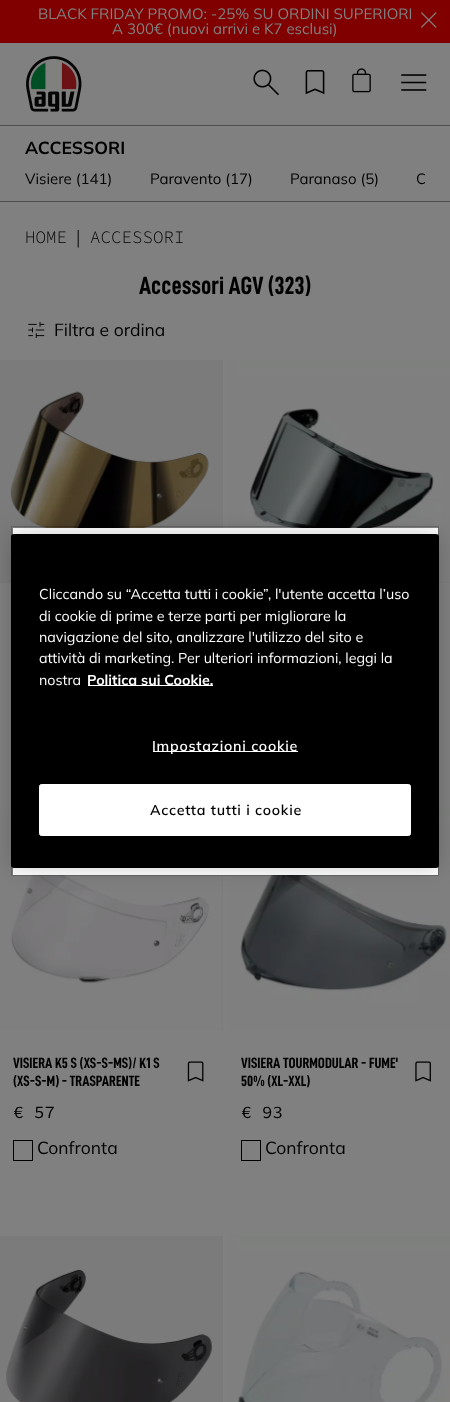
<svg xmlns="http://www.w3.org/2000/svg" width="450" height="1402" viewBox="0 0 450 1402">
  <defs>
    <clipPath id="clip1"><rect x="25" y="156" width="400" height="45"/></clipPath>
  </defs>
  <rect width="100%" height="100%" fill="rgb(128,128,128)"/>
  <rect x="0" y="125" width="450" height="1" fill="rgb(79,79,78)"/>
  <rect x="0" y="0" width="450" height="43" fill="rgb(128,0,0)"/>
  <g font-family="Mulish" font-size="15" fill="rgb(128,128,128)">
    <text x="38" y="19">BLACK FRIDAY PROMO: -25% SU ORDINI SUPERIORI</text>
    <text x="112" y="34">A 300€ (nuovi arrivi e K7 esclusi)</text>
  </g>
  <image x="421" y="12" width="16" height="16" href="pic1.png"/>
  <image x="26" y="56" width="56" height="56" href="pic2.png"/>
  <image x="253" y="69" width="26" height="27" href="pic3.png"/>
  <image x="305" y="70" width="20" height="25" href="pic4.png"/>
  <image x="352" y="68" width="19" height="25" href="pic5.png"/>
  <image x="401" y="74" width="26" height="17" href="pic6.png"/>
  <rect x="0" y="201" width="450" height="1" fill="rgb(79,79,78)"/>
  <text x="25" y="154" font-family="Mulish" font-size="17.5" font-weight="bold" fill="rgb(0,0,0)">ACCESSORI</text>
  <g font-family="Mulish" font-size="15" fill="rgb(0,0,0)">
    <text x="25" y="184">Visiere (141)</text>
    <text x="150" y="184">Paravento (17)</text>
    <text x="290" y="184">Paranaso (5)</text>
  </g>
  <g clip-path="url(#clip1)">
    <text x="416" y="184" font-family="Mulish" font-size="15" fill="rgb(0,0,0)">C</text>
  </g>
  <text x="25" y="243" font-family="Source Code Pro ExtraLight" font-size="17.5" font-weight="300" fill="rgb(0,0,0)">HOME</text>
  <text x="73" y="243" font-family="Source Code Pro ExtraLight" font-size="17.5" fill="rgb(32,32,32)">|</text>
  <text x="90" y="243" font-family="Source Code Pro ExtraLight" font-size="17.5" font-weight="300" fill="rgb(0,0,0)">ACCESSORI</text>
  <text x="139" y="294" font-family="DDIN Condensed" font-size="25" font-weight="bold" fill="rgb(0,0,0)">Accessori AGV (323)</text>
  <image x="28" y="322" width="17" height="16" href="pic7.png"/>
  <text x="54" y="336" font-family="Mulish" font-size="17.5" fill="rgb(0,0,0)">Filtra e ordina</text>
  <rect x="0" y="360" width="223" height="223" fill="rgb(123,123,123)"/>
  <image x="10" y="391" width="199" height="137" href="pic8.png"/>
  <rect x="229" y="360" width="221" height="223" fill="rgb(123,123,123)"/>
  <image x="229" y="360" width="221" height="223" href="pic9.png"/>
  <rect x="0" y="808" width="223" height="222" fill="rgb(123,123,123)"/>
  <image x="0" y="808" width="223" height="222" href="pic10.png"/>
  <g font-family="DDIN Condensed" font-size="15" font-weight="bold" fill="rgb(0,0,0)">
    <text>
      <tspan x="13" y="1068">VISIERA K5 S (XS-S-MS)/ K1 S</tspan>
      <tspan x="13" y="1086">(XS-S-M) - TRASPARENTE</tspan>
    </text>
  </g>
  <image x="187" y="1061" width="17" height="21" href="pic11.png"/>
  <text x="13" y="1118" font-family="Source Code Pro ExtraLight" font-size="17.5" fill="rgb(0,0,0)">€ 57</text>
  <rect x="13.5" y="1140.5" width="19" height="20" fill="none" stroke="rgb(0,0,0)"/>
  <text x="37" y="1154" font-family="Mulish" font-size="17.5" fill="rgb(0,0,0)">Confronta</text>
  <image x="229" y="808" width="221" height="222" href="pic12.png"/>
  <g font-family="DDIN Condensed" font-size="15" font-weight="bold" fill="rgb(0,0,0)">
    <text>
      <tspan x="241" y="1068">VISIERA TOURMODULAR - FUME'</tspan>
      <tspan x="241" y="1086">50% (XL-XXL)</tspan>
    </text>
  </g>
  <image x="415" y="1061" width="16" height="21" href="pic13.png"/>
  <text x="241" y="1118" font-family="Source Code Pro ExtraLight" font-size="17.5" fill="rgb(0,0,0)">€ 93</text>
  <rect x="241.5" y="1140.5" width="19" height="20" fill="none" stroke="rgb(0,0,0)"/>
  <text x="265" y="1154" font-family="Mulish" font-size="17.5" fill="rgb(0,0,0)">Confronta</text>
  <rect x="0" y="1236" width="223" height="166" fill="rgb(123,123,123)"/>
  <image x="6" y="1269" width="207" height="133" href="pic14.png"/>
  <rect x="229" y="1236" width="221" height="166" fill="rgb(123,123,123)"/>
  <image x="229" y="1236" width="221" height="166" href="pic15.png"/>
  <rect x="13" y="528" width="425" height="347" fill="rgb(255,255,255)"/>
  <rect x="11.5" y="526.5" width="427" height="349" fill="none" stroke="rgba(0,0,0,0.18)"/>
  <rect x="11" y="534" width="428" height="334" rx="3" fill="rgba(0,0,0,0.2)" filter="blur(11px)"/>
  <rect x="11" y="534" width="428" height="334" rx="3" fill="rgb(0,0,0)"/>
  <g font-family="Mulish" font-size="14.25" fill="rgb(255,255,255)">
    <text>
      <tspan x="39" y="599">Cliccando su “Accetta tutti i cookie”, l'utente accetta l’uso</tspan>
      <tspan x="39" y="621">di cookie di prime e terze parti per migliorare la</tspan>
      <tspan x="39" y="642">navigazione del sito, analizzare l'utilizzo del sito e</tspan>
      <tspan x="39" y="663">attività di marketing. Per ulteriori informazioni, leggi la</tspan>
      <tspan x="39" y="685">nostra</tspan>
    </text>
  </g>
  <rect x="88" y="685" width="125" height="1" fill="rgb(255,255,255)"/>
  <text x="87" y="685" font-family="Mulish" font-size="14.25" font-weight="bold" fill="rgb(255,255,255)">Politica sui Cookie.</text>
  <rect x="153" y="751" width="145" height="1" fill="rgb(255,255,255)"/>
  <text x="152" y="751" font-family="Mulish" font-size="14.25" font-weight="600" letter-spacing="0.75" fill="rgb(255,255,255)">Impostazioni cookie</text>
  <rect x="39.5" y="784.5" width="371" height="51" rx="2" fill="rgb(255,255,255)" stroke="rgb(255,255,255)"/>
  <text x="150" y="815" font-family="Mulish" font-size="14.25" font-weight="600" letter-spacing="0.75" fill="rgb(0,0,0)">Accetta tutti i cookie</text>
</svg>
